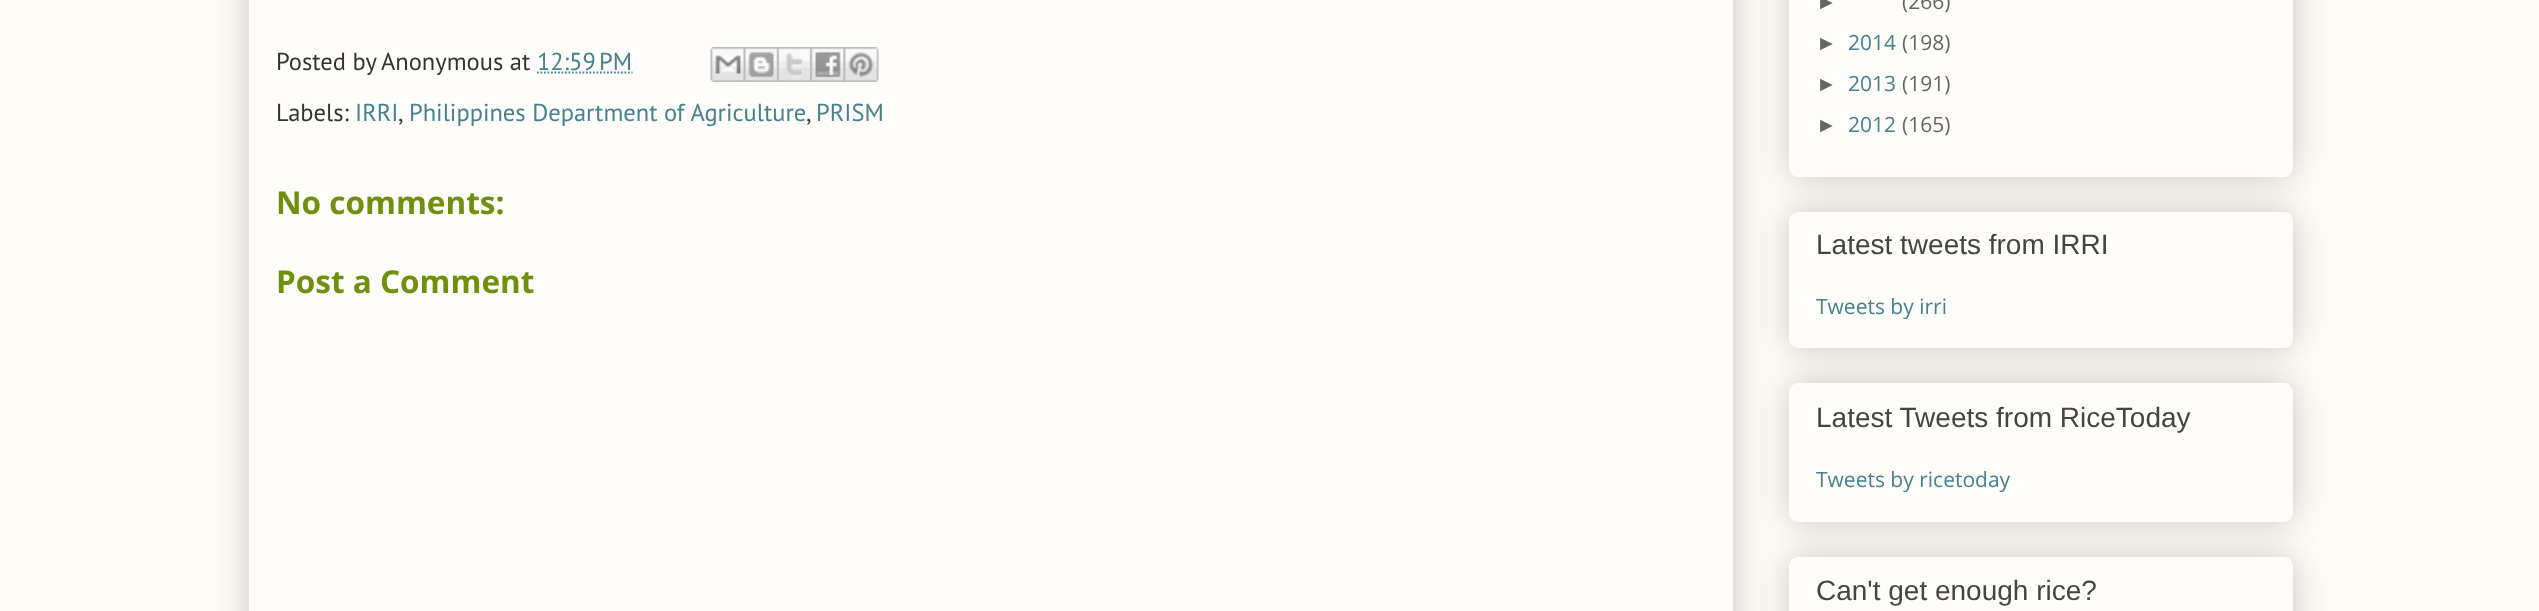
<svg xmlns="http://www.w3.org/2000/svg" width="2539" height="611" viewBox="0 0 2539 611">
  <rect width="100%" height="100%" fill="rgb(252,251,245)"/>
  <rect x="249" y="-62" width="1484" height="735" rx="9" fill="rgba(0,0,0,0.2)" filter="blur(17.5px)"/>
  <rect x="249" y="0" width="1484" height="611" fill="rgb(254,253,250)"/>
  <g font-family="PT Sans" font-size="24.5" fill="rgb(51,51,51)">
    <text x="276" y="70">Posted by</text>
    <text x="381" y="70">Anonymous at</text>
  </g>
  <text x="537" y="70" font-family="PT Sans" font-size="24.5" fill="rgb(69,129,142)">12:59 PM</text>
  <path d="M537 72.5H632.5" fill="none" stroke="rgb(69,129,142)" stroke-width="1.8" stroke-dasharray="1.75 1.75"/>
  <image x="710" y="47" width="34" height="35" href="pic1.png"/>
  <image x="743" y="47" width="34" height="35" href="pic2.png"/>
  <image x="777" y="47" width="34" height="35" href="pic3.png"/>
  <image x="810" y="47" width="34" height="35" href="pic4.png"/>
  <image x="843" y="47" width="36" height="35" href="pic5.png"/>
  <text x="276" y="121" font-family="PT Sans" font-size="24.5" fill="rgb(51,51,51)">Labels:</text>
  <text x="355" y="121" font-family="PT Sans" font-size="24.5" fill="rgb(69,129,142)">IRRI</text>
  <text x="398" y="121" font-family="PT Sans" font-size="24.5" fill="rgb(51,51,51)">,</text>
  <text x="409" y="121" font-family="PT Sans" font-size="24.5" fill="rgb(69,129,142)">Philippines Department of Agriculture</text>
  <text x="806" y="121" font-family="PT Sans" font-size="24.5" fill="rgb(51,51,51)">,</text>
  <text x="816" y="121" font-family="PT Sans" font-size="24.5" fill="rgb(69,129,142)">PRISM</text>
  <g font-family="Open Sans" font-size="31.5" font-weight="bold" fill="rgb(110,144,13)">
    <text x="276" y="214">No comments:</text>
    <text x="276" y="293">Post a Comment</text>
  </g>
  <rect x="1789" y="-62" width="504" height="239" rx="9" fill="rgba(0,0,0,0.2)" filter="blur(17.5px)"/>
  <rect x="1789" y="-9" width="504" height="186" rx="9" fill="rgb(254,253,250)"/>
  <text x="1816" y="9" font-family="Liberation Sans" font-size="21" fill="rgb(102,102,102)">►</text>
  <text x="1902" y="9" font-family="Open Sans" font-size="21" fill="rgb(102,102,102)">(266)</text>
  <text x="1816" y="50" font-family="Liberation Sans" font-size="21" fill="rgb(102,102,102)">►</text>
  <text x="1848" y="50" font-family="Open Sans" font-size="21" fill="rgb(69,129,142)">2014</text>
  <text x="1902" y="50" font-family="Open Sans" font-size="21" fill="rgb(102,102,102)">(198)</text>
  <text x="1816" y="91" font-family="Liberation Sans" font-size="21" fill="rgb(102,102,102)">►</text>
  <text x="1848" y="91" font-family="Open Sans" font-size="21" fill="rgb(69,129,142)">2013</text>
  <text x="1902" y="91" font-family="Open Sans" font-size="21" fill="rgb(102,102,102)">(191)</text>
  <text x="1816" y="132" font-family="Liberation Sans" font-size="21" fill="rgb(102,102,102)">►</text>
  <text x="1848" y="132" font-family="Open Sans" font-size="21" fill="rgb(69,129,142)">2012</text>
  <text x="1902" y="132" font-family="Open Sans" font-size="21" fill="rgb(102,102,102)">(165)</text>
  <rect x="1789" y="212" width="504" height="136" rx="9" fill="rgba(0,0,0,0.2)" filter="blur(17.5px)"/>
  <rect x="1789" y="212" width="504" height="136" rx="9" fill="rgb(254,253,250)"/>
  <text x="1816" y="254" font-family="Liberation Sans" font-size="28" fill="rgb(68,68,68)">Latest tweets from IRRI</text>
  <text x="1816" y="314" font-family="Open Sans" font-size="21" fill="rgb(69,129,142)">Tweets by irri</text>
  <rect x="1789" y="383" width="504" height="139" rx="9" fill="rgba(0,0,0,0.2)" filter="blur(17.5px)"/>
  <rect x="1789" y="383" width="504" height="139" rx="9" fill="rgb(254,253,250)"/>
  <text x="1816" y="427" font-family="Liberation Sans" font-size="28" fill="rgb(68,68,68)">Latest Tweets from RiceToday</text>
  <text x="1816" y="487" font-family="Open Sans" font-size="21" fill="rgb(69,129,142)">Tweets by ricetoday</text>
  <rect x="1789" y="557" width="504" height="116" rx="9" fill="rgba(0,0,0,0.2)" filter="blur(17.5px)"/>
  <rect x="1789" y="557" width="504" height="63" rx="9" fill="rgb(254,253,250)"/>
  <text x="1816" y="600" font-family="Liberation Sans" font-size="28" fill="rgb(68,68,68)">Can't get enough rice?</text>
</svg>
